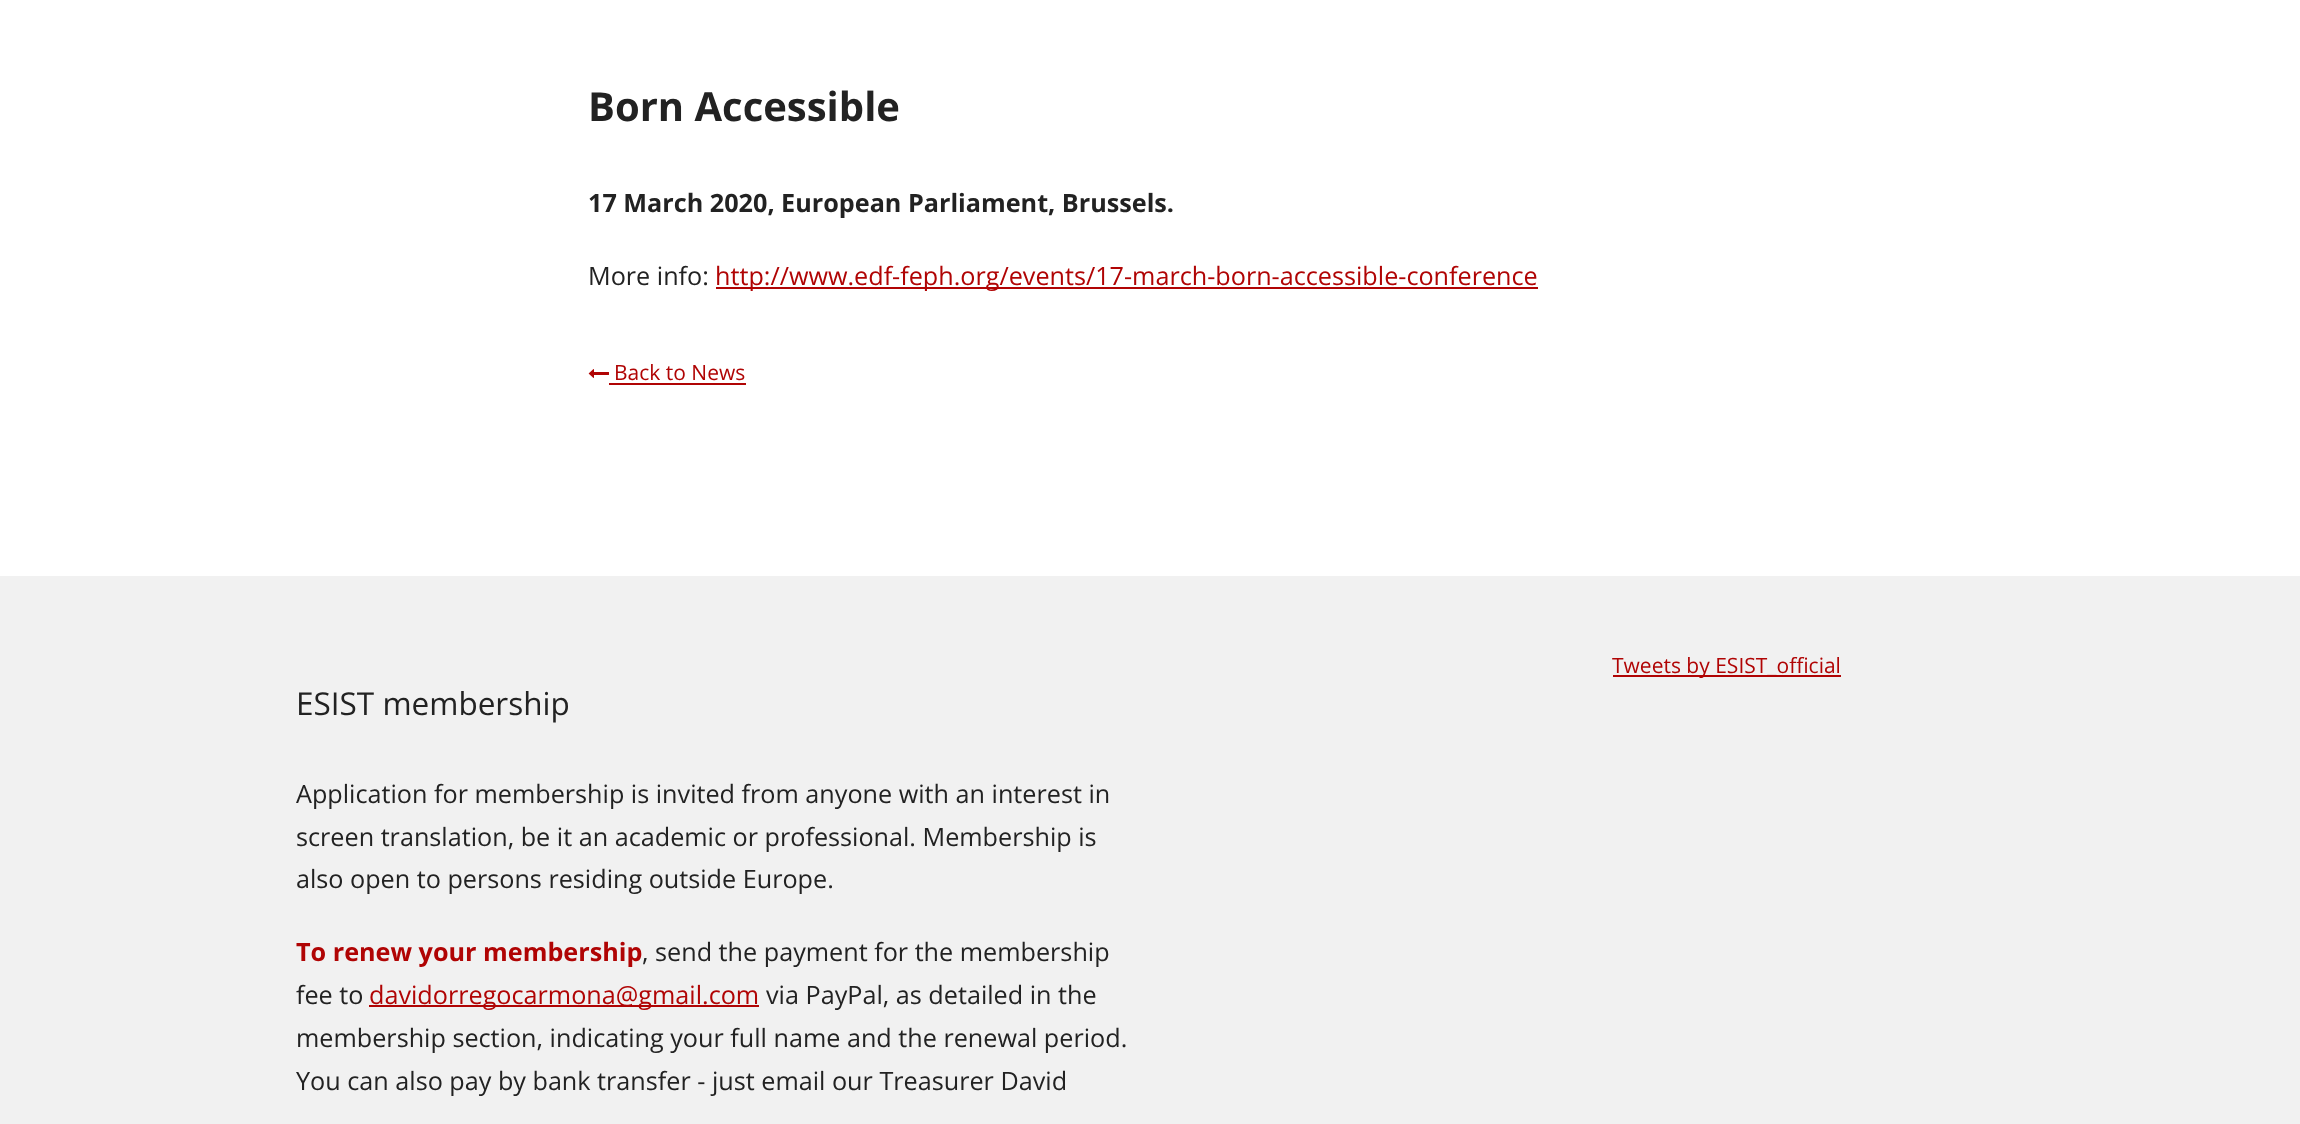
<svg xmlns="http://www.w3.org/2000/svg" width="2300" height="1124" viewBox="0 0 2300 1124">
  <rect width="100%" height="100%" fill="rgb(255,255,255)"/>
  <text x="588" y="121" font-family="Open Sans" font-size="40" font-weight="bold" fill="rgb(34,34,34)">Born Accessible</text>
  <text x="588" y="212" font-family="Open Sans" font-size="25.2" font-weight="bold" fill="rgb(34,34,34)">17 March 2020, European Parliament, Brussels.</text>
  <text x="588" y="285" font-family="Open Sans" font-size="25.2" fill="rgb(34,34,34)">More info:</text>
  <rect x="716" y="287" width="822" height="2" fill="rgb(176,4,4)"/>
  <text x="715" y="285" font-family="Open Sans" font-size="25.2" fill="rgb(176,4,4)">http://www.edf-feph.org/events/17-march-born-accessible-conference</text>
  <image x="588" y="369" width="21" height="9" href="pic1.png"/>
  <text x="614" y="380" font-family="Open Sans" font-size="21" fill="rgb(176,4,4)">Back to News</text>
  <rect x="609" y="383" width="137" height="2" fill="rgb(176,4,4)"/>
  <rect x="0" y="576" width="2300" height="548" fill="rgb(241,241,241)"/>
  <rect x="1613" y="675" width="228" height="2" fill="rgb(176,4,4)"/>
  <text x="1612" y="673" font-family="Open Sans" font-size="21" fill="rgb(176,4,4)">Tweets by ESIST_official</text>
  <text x="296" y="715" font-family="Open Sans" font-size="31.5" fill="rgb(34,34,34)">ESIST membership</text>
  <g font-family="Open Sans" font-size="25.2" fill="rgb(34,34,34)">
    <text>
      <tspan x="296" y="803">Application for membership is invited from anyone with an interest in</tspan>
      <tspan x="296" y="846">screen translation, be it an academic or professional. Membership is</tspan>
      <tspan x="296" y="888">also open to persons residing outside Europe.</tspan>
    </text>
  </g>
  <text x="296" y="961" font-family="Open Sans" font-size="25.2" font-weight="bold" fill="rgb(176,4,4)">To renew your membership</text>
  <g font-family="Open Sans" font-size="25.2" fill="rgb(34,34,34)">
    <text x="642" y="961">, send the payment for the membership</text>
    <text x="296" y="1004">fee to</text>
  </g>
  <rect x="369" y="1005" width="390" height="2" fill="rgb(176,4,4)"/>
  <text x="369" y="1004" font-family="Open Sans" font-size="25.2" fill="rgb(176,4,4)">davidorregocarmona@gmail.com</text>
  <g font-family="Open Sans" font-size="25.2" fill="rgb(34,34,34)">
    <text x="766" y="1004">via PayPal, as detailed in the</text>
    <text>
      <tspan x="296" y="1047">membership section, indicating your full name and the renewal period.</tspan>
      <tspan x="296" y="1090">You can also pay by bank transfer - just email our Treasurer David</tspan>
    </text>
  </g>
</svg>
